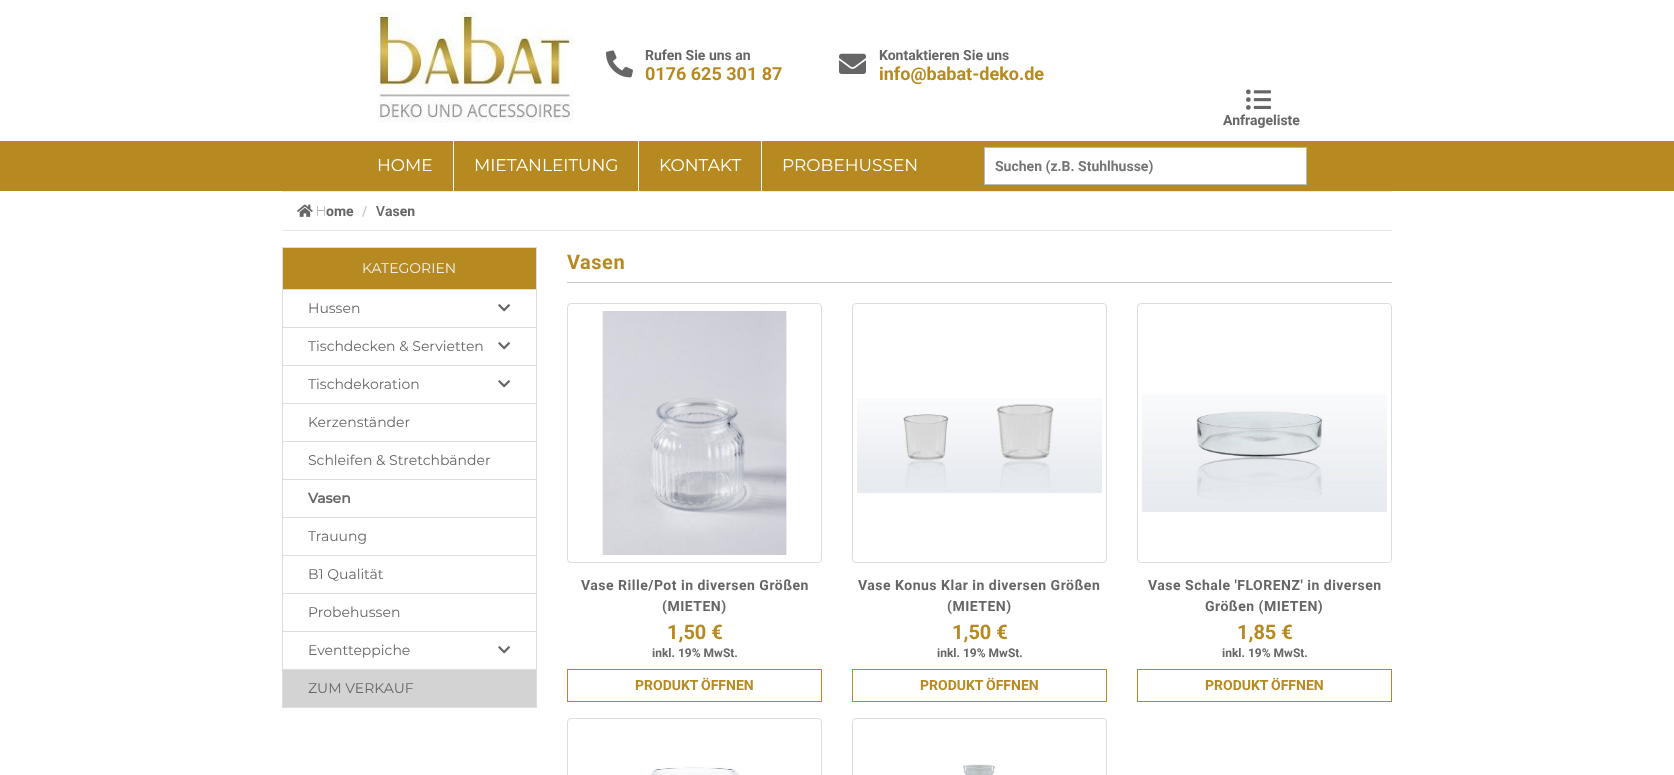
<svg xmlns="http://www.w3.org/2000/svg" width="1674" height="775" viewBox="0 0 1674 775">
  <rect width="100%" height="100%" fill="rgb(255,255,255)"/>
  <image x="370" y="12" width="204" height="111" href="pic1.png"/>
  <image x="606" y="50" width="27" height="28" href="pic2.png"/>
  <text x="645" y="60" font-family="Roboto" font-size="14" font-weight="bold" fill="rgb(102,102,102)">Rufen Sie uns an</text>
  <text x="645" y="80" font-family="Roboto" font-size="18" font-weight="bold" fill="rgb(182,138,33)">0176 625 301 87</text>
  <image x="839" y="53" width="27" height="21" href="pic3.png"/>
  <text x="879" y="60" font-family="Roboto" font-size="14" font-weight="bold" fill="rgb(102,102,102)">Kontaktieren Sie uns</text>
  <text x="879" y="80" font-family="Roboto" font-size="18" font-weight="bold" fill="rgb(182,138,33)">info@babat-deko.de</text>
  <image x="1246" y="89" width="25" height="21" href="pic4.png"/>
  <text x="1223" y="125" font-family="Roboto" font-size="14" font-weight="bold" fill="rgb(102,102,102)">Anfrageliste</text>
  <rect x="0" y="141" width="1674" height="50" fill="rgb(182,138,33)"/>
  <rect x="453" y="141" width="1" height="50" fill="rgb(255,255,255)"/>
  <text x="377" y="171" font-family="Montserrat" font-size="17" font-weight="100" fill="rgb(255,255,255)">HOME</text>
  <rect x="638" y="141" width="1" height="50" fill="rgb(255,255,255)"/>
  <text x="474" y="171" font-family="Montserrat" font-size="17" font-weight="100" fill="rgb(255,255,255)">MIETANLEITUNG</text>
  <rect x="761" y="141" width="1" height="50" fill="rgb(255,255,255)"/>
  <g font-family="Montserrat" font-size="17" font-weight="100" fill="rgb(255,255,255)">
    <text x="659" y="171">KONTAKT</text>
    <text x="782" y="171">PROBEHUSSEN</text>
  </g>
  <rect x="984.5" y="147.5" width="322" height="37" fill="rgb(255,255,255)" stroke="rgb(186,186,186)"/>
  <text x="995" y="171" font-family="Roboto" font-size="14" font-weight="bold" fill="rgb(117,117,117)">Suchen (z.B. Stuhlhusse)</text>
  <rect x="282" y="191" width="1110" height="1" fill="rgb(232,232,232)"/>
  <rect x="282" y="230" width="1110" height="1" fill="rgb(232,232,232)"/>
  <image x="297" y="204" width="16" height="13" href="pic5.png"/>
  <text x="316" y="216" font-family="Noto Sans" font-size="14" font-weight="100" fill="rgb(102,102,102)">H</text>
  <text x="326" y="216" font-family="Roboto" font-size="14" font-weight="bold" fill="rgb(102,102,102)">ome</text>
  <text x="362" y="216" font-family="Roboto" font-size="14" font-weight="bold" fill="rgb(204,204,204)">/</text>
  <text x="376" y="216" font-family="Noto Sans" font-size="14" font-weight="600" fill="rgb(102,102,102)">V</text>
  <text x="385" y="216" font-family="Roboto" font-size="14" font-weight="bold" fill="rgb(102,102,102)">asen</text>
  <rect x="282" y="247" width="255" height="1" fill="rgb(221,221,221)"/>
  <rect x="536" y="247" width="1" height="461" fill="rgb(221,221,221)"/>
  <rect x="282" y="247" width="1" height="461" fill="rgb(221,221,221)"/>
  <rect x="283" y="248" width="253" height="41" fill="rgb(182,138,33)"/>
  <rect x="283" y="289" width="253" height="1" fill="rgb(221,221,221)"/>
  <text x="362" y="273" font-family="Montserrat" font-size="14" font-weight="100" fill="rgb(240,240,240)">KATEGORIEN</text>
  <rect x="283" y="327" width="253" height="1" fill="rgb(221,221,221)"/>
  <text x="308" y="313" font-family="Montserrat" font-size="14" font-weight="100" fill="rgb(102,102,102)">Hussen</text>
  <image x="498" y="304" width="12" height="8" href="pic6.png"/>
  <rect x="283" y="365" width="253" height="1" fill="rgb(221,221,221)"/>
  <text x="308" y="351" font-family="Montserrat" font-size="14" font-weight="100" fill="rgb(102,102,102)">Tischdecken &amp; Servietten</text>
  <image x="498" y="342" width="12" height="8" href="pic6.png"/>
  <rect x="283" y="403" width="253" height="1" fill="rgb(221,221,221)"/>
  <text x="308" y="389" font-family="Montserrat" font-size="14" font-weight="100" fill="rgb(102,102,102)">Tischdekoration</text>
  <image x="498" y="380" width="12" height="8" href="pic6.png"/>
  <rect x="283" y="441" width="253" height="1" fill="rgb(221,221,221)"/>
  <text x="308" y="427" font-family="Montserrat" font-size="14" font-weight="100" fill="rgb(102,102,102)">Kerzenständer</text>
  <rect x="283" y="479" width="253" height="1" fill="rgb(221,221,221)"/>
  <text x="308" y="465" font-family="Montserrat" font-size="14" font-weight="100" fill="rgb(102,102,102)">Schleifen &amp; Stretchbänder</text>
  <rect x="283" y="517" width="253" height="1" fill="rgb(221,221,221)"/>
  <text x="308" y="503" font-family="Montserrat" font-size="14" font-weight="bold" fill="rgb(102,102,102)">Vasen</text>
  <rect x="283" y="555" width="253" height="1" fill="rgb(221,221,221)"/>
  <text x="308" y="541" font-family="Montserrat" font-size="14" font-weight="100" fill="rgb(102,102,102)">Trauung</text>
  <rect x="283" y="593" width="253" height="1" fill="rgb(221,221,221)"/>
  <text x="308" y="579" font-family="Montserrat" font-size="14" font-weight="100" fill="rgb(102,102,102)">B1 Qualität</text>
  <rect x="283" y="631" width="253" height="1" fill="rgb(221,221,221)"/>
  <text x="308" y="617" font-family="Montserrat" font-size="14" font-weight="100" fill="rgb(102,102,102)">Probehussen</text>
  <rect x="283" y="669" width="253" height="1" fill="rgb(221,221,221)"/>
  <text x="308" y="655" font-family="Montserrat" font-size="14" font-weight="100" fill="rgb(102,102,102)">Eventteppiche</text>
  <image x="498" y="646" width="12" height="8" href="pic6.png"/>
  <rect x="283" y="670" width="253" height="37" fill="rgb(211,211,211)"/>
  <rect x="283" y="707" width="253" height="1" fill="rgb(221,221,221)"/>
  <text x="308" y="693" font-family="Montserrat" font-size="14" font-weight="100" fill="rgb(102,102,102)">ZUM VERKAUF</text>
  <rect x="567" y="282" width="825" height="1" fill="rgb(204,204,204)"/>
  <text x="567" y="269" font-family="Roboto" font-size="20" font-weight="bold" letter-spacing="0.5" fill="rgb(182,138,33)">Vasen</text>
  <rect x="567.5" y="303.5" width="254" height="259" rx="3.5" fill="none" stroke="rgb(221,221,221)"/>
  <image x="602" y="311" width="185" height="244" href="pic7.png"/>
  <g font-family="Roboto" font-size="14" font-weight="bold" letter-spacing="0.5" fill="rgb(102,102,102)">
    <text x="581" y="590">Vase Rille/Pot in diversen Größen</text>
    <text x="662" y="611">(MIETEN)</text>
  </g>
  <text x="667" y="639" font-family="Roboto" font-size="20" font-weight="bold" fill="rgb(182,138,33)">1,50 €</text>
  <text x="652" y="657" font-family="Roboto" font-size="12" font-weight="bold" fill="rgb(102,102,102)">inkl. 19% MwSt.</text>
  <rect x="567.5" y="669.5" width="254" height="32" fill="none" stroke="rgb(182,138,33)"/>
  <g font-family="Roboto" font-size="14" font-weight="bold" fill="rgb(182,138,33)">
    <text x="635" y="690">PRODUKT</text>
    <text x="701" y="690">ÖFFNEN</text>
  </g>
  <rect x="852.5" y="303.5" width="254" height="259" rx="3.5" fill="none" stroke="rgb(221,221,221)"/>
  <image x="857" y="398" width="245" height="95" href="pic8.png"/>
  <g font-family="Roboto" font-size="14" font-weight="bold" letter-spacing="0.5" fill="rgb(102,102,102)">
    <text x="858" y="590">Vase Konus Klar in diversen Größen</text>
    <text x="947" y="611">(MIETEN)</text>
  </g>
  <text x="952" y="639" font-family="Roboto" font-size="20" font-weight="bold" fill="rgb(182,138,33)">1,50 €</text>
  <text x="937" y="657" font-family="Roboto" font-size="12" font-weight="bold" fill="rgb(102,102,102)">inkl. 19% MwSt.</text>
  <rect x="852.5" y="669.5" width="254" height="32" fill="none" stroke="rgb(182,138,33)"/>
  <g font-family="Roboto" font-size="14" font-weight="bold" fill="rgb(182,138,33)">
    <text x="920" y="690">PRODUKT</text>
    <text x="986" y="690">ÖFFNEN</text>
  </g>
  <rect x="1137.5" y="303.5" width="254" height="259" rx="3.5" fill="none" stroke="rgb(221,221,221)"/>
  <image x="1142" y="394" width="245" height="118" href="pic9.png"/>
  <g font-family="Roboto" font-size="14" font-weight="bold" letter-spacing="0.5" fill="rgb(102,102,102)">
    <text x="1148" y="590">Vase Schale 'FLORENZ' in diversen</text>
    <text x="1205" y="611">Größen (MIETEN)</text>
  </g>
  <text x="1237" y="639" font-family="Roboto" font-size="20" font-weight="bold" fill="rgb(182,138,33)">1,85 €</text>
  <text x="1222" y="657" font-family="Roboto" font-size="12" font-weight="bold" fill="rgb(102,102,102)">inkl. 19% MwSt.</text>
  <rect x="1137.5" y="669.5" width="254" height="32" fill="none" stroke="rgb(182,138,33)"/>
  <g font-family="Roboto" font-size="14" font-weight="bold" fill="rgb(182,138,33)">
    <text x="1205" y="690">PRODUKT</text>
    <text x="1271" y="690">ÖFFNEN</text>
  </g>
  <rect x="567.5" y="718.5" width="254" height="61" rx="3.5" fill="none" stroke="rgb(221,221,221)"/>
  <image x="650" y="766" width="90" height="9" href="pic10.png"/>
  <rect x="852.5" y="718.5" width="254" height="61" rx="3.5" fill="none" stroke="rgb(221,221,221)"/>
  <image x="963" y="764" width="34" height="11" href="pic11.png"/>
</svg>
